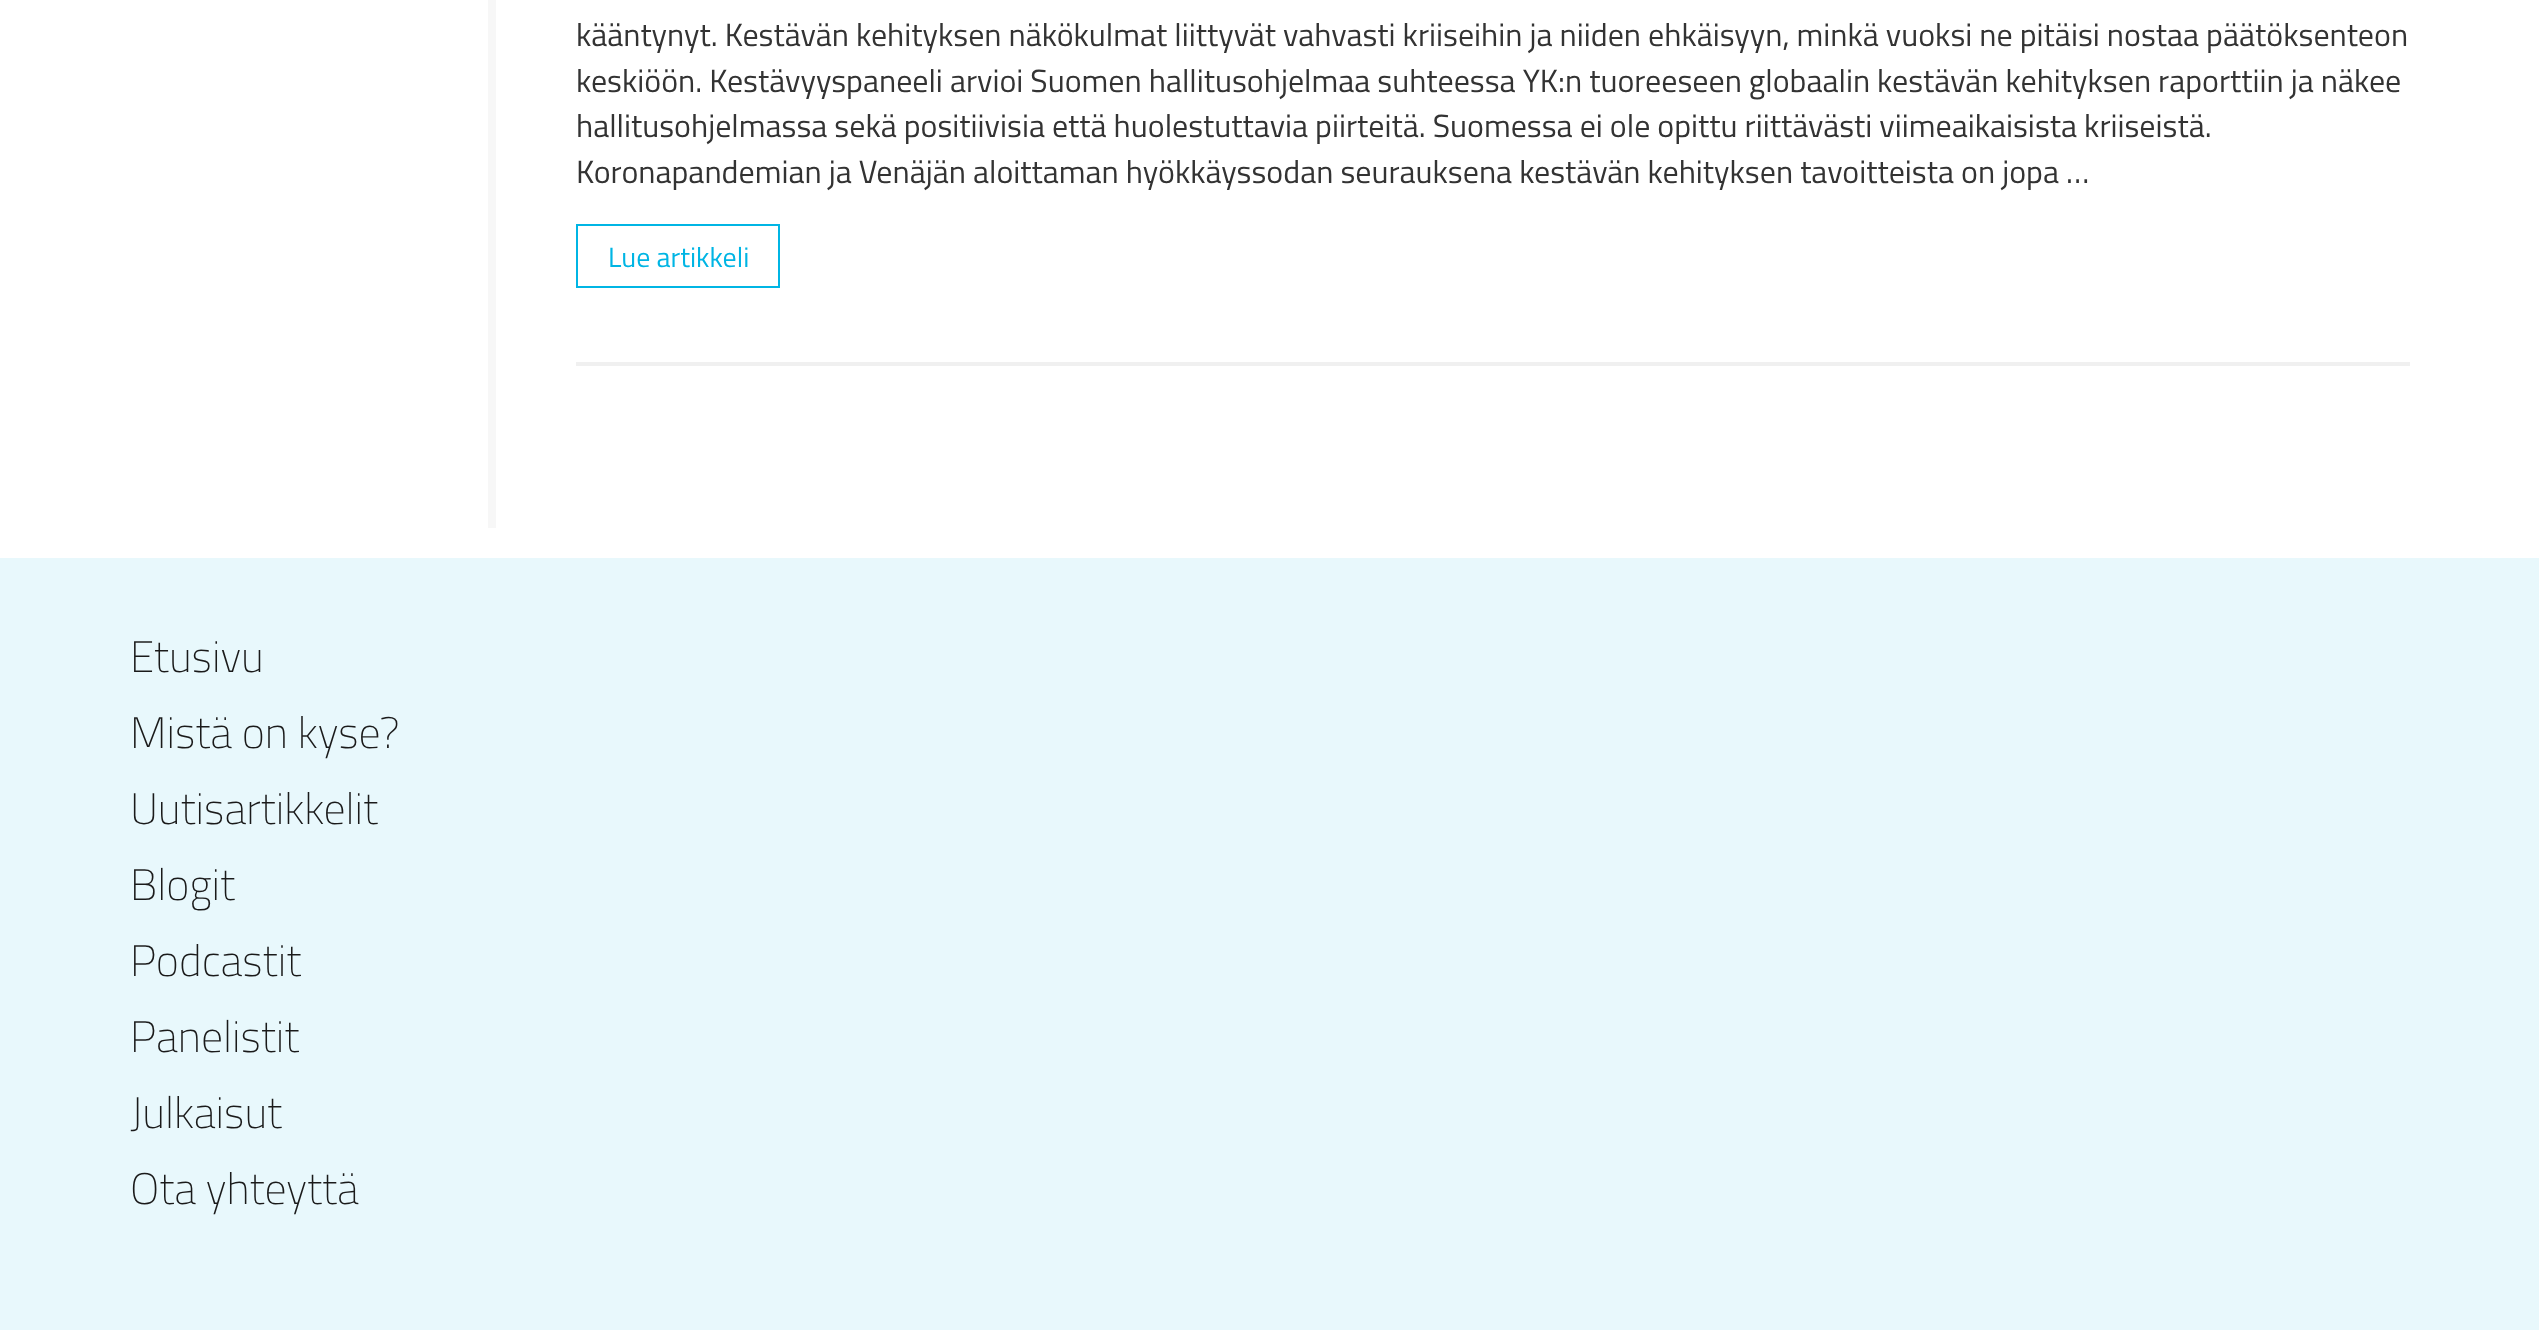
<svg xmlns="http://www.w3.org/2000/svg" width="2539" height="1330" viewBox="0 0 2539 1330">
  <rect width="100%" height="100%" fill="rgb(255,255,255)"/>
  <rect x="488" y="0" width="8" height="528" fill="rgb(247,247,247)"/>
  <rect x="576" y="362" width="1834" height="4" fill="rgb(240,240,240)"/>
  <g font-family="Titillium Web" font-size="32" fill="rgb(51,51,51)">
    <text>
      <tspan x="576" y="46">kääntynyt. Kestävän kehityksen näkökulmat liittyvät vahvasti kriiseihin ja niiden ehkäisyyn, minkä vuoksi ne pitäisi nostaa päätöksenteon</tspan>
      <tspan x="576" y="92">keskiöön. Kestävyyspaneeli arvioi Suomen hallitusohjelmaa suhteessa YK:n tuoreeseen globaalin kestävän kehityksen raporttiin ja näkee</tspan>
      <tspan x="576" y="137">hallitusohjelmassa sekä positiivisia että huolestuttavia piirteitä. Suomessa ei ole opittu riittävästi viimeaikaisista kriiseistä.</tspan>
      <tspan x="576" y="183">Koronapandemian ja Venäjän aloittaman hyökkäyssodan seurauksena kestävän kehityksen tavoitteista on jopa …</tspan>
    </text>
  </g>
  <rect x="577" y="225" width="202" height="62" fill="none" stroke="rgb(0,181,228)" stroke-width="2"/>
  <text x="608" y="267" font-family="Titillium Web" font-size="28" fill="rgb(0,181,228)">Lue artikkeli</text>
  <rect x="0" y="558" width="2539" height="772" fill="rgb(232,248,252)"/>
  <g font-family="Titillium Web" font-size="44" font-weight="300" fill="rgb(26,26,26)">
    <text>
      <tspan x="130" y="672">Etusivu</tspan>
      <tspan x="130" y="748">Mistä on kyse?</tspan>
      <tspan x="130" y="824">Uutisartikkelit</tspan>
      <tspan x="130" y="900">Blogit</tspan>
      <tspan x="130" y="976">Podcastit</tspan>
      <tspan x="130" y="1052">Panelistit</tspan>
      <tspan x="130" y="1128">Julkaisut</tspan>
      <tspan x="130" y="1204">Ota yhteyttä</tspan>
    </text>
  </g>
</svg>
